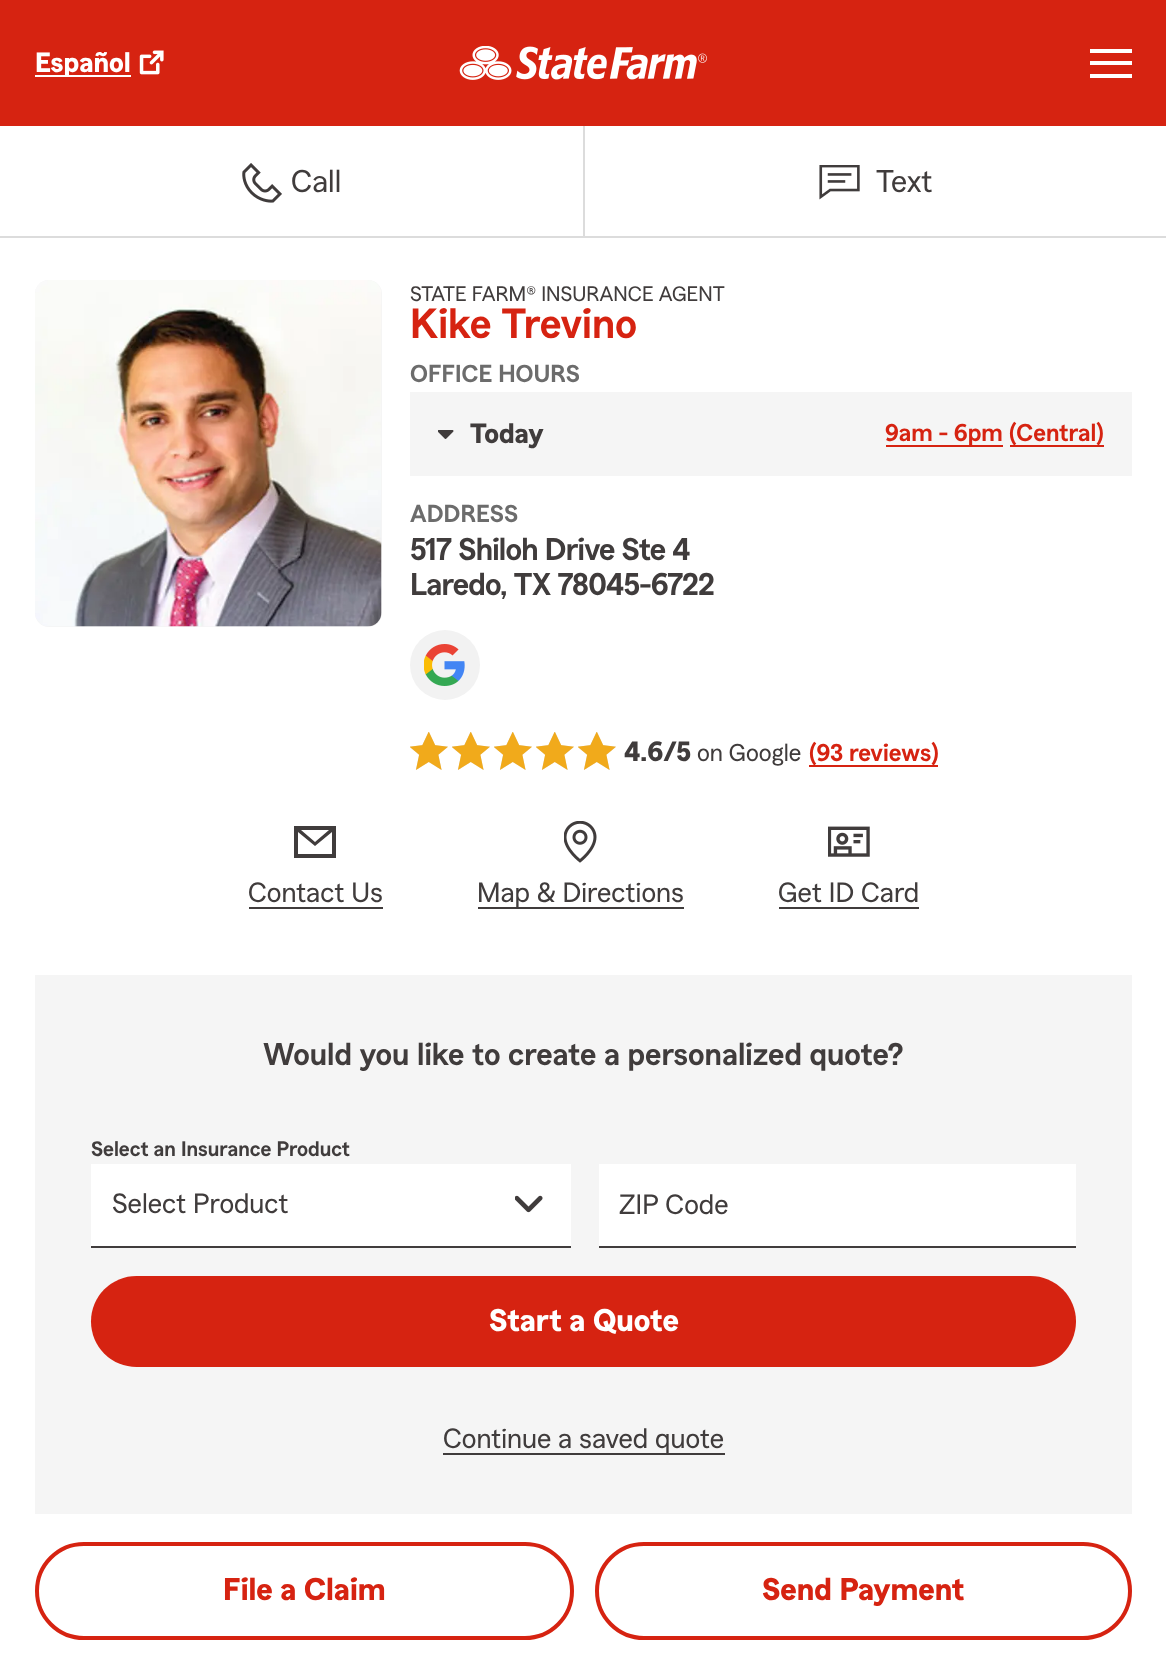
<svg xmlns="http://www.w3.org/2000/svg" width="1166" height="1661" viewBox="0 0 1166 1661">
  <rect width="100%" height="100%" fill="rgb(255,255,255)"/>
  <rect x="0" y="0" width="1166" height="126" fill="rgb(214,35,17)"/>
  <rect x="35" y="75" width="96" height="2" fill="rgb(255,255,255)"/>
  <text x="35" y="72" font-family="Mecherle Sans" font-size="28" font-weight="bold" fill="rgb(255,255,255)">Español</text>
  <image x="139" y="50" width="25" height="25" href="pic1.png"/>
  <image x="459" y="46" width="248" height="34" href="pic2.png"/>
  <rect x="1090" y="49" width="42" height="4" fill="rgb(255,255,255)"/>
  <rect x="1090" y="61" width="42" height="4" fill="rgb(255,255,255)"/>
  <rect x="1090" y="74" width="42" height="4" fill="rgb(255,255,255)"/>
  <rect x="0" y="236" width="1166" height="2" fill="rgb(220,220,220)"/>
  <image x="242" y="163" width="40" height="40" href="pic3.png"/>
  <text x="291" y="192" font-family="Mecherle Sans" font-size="31.5" fill="rgb(64,60,60)">Call</text>
  <rect x="583" y="126" width="2" height="110" fill="rgb(220,220,220)"/>
  <image x="819" y="165" width="41" height="35" href="pic4.png"/>
  <text x="876" y="192" font-family="Mecherle Sans" font-size="31.5" fill="rgb(64,60,60)">Text</text>
  <rect x="35" y="280" width="347" height="347" rx="14" fill="rgb(245,245,245)"/>
  <image x="35" y="280" width="347" height="347" href="pic5.png"/>
  <text x="410" y="301" font-family="Mecherle Sans" font-size="21" fill="rgb(64,60,60)">STATE FARM® INSURANCE AGENT</text>
  <text x="410" y="338" font-family="Mecherle Sans" font-size="42" font-weight="600" fill="rgb(214,35,17)">Kike Trevino</text>
  <text x="410" y="382" font-family="Mecherle Sans" font-size="24.5" font-weight="600" fill="rgb(108,108,108)">OFFICE HOURS</text>
  <rect x="410" y="392" width="722" height="84" fill="rgb(245,245,245)"/>
  <image x="438" y="430" width="16" height="9" href="pic6.png"/>
  <text x="470" y="443" font-family="Mecherle Sans" font-size="28" font-weight="bold" fill="rgb(64,60,60)">Today</text>
  <rect x="886" y="445" width="117" height="2" fill="rgb(214,35,17)"/>
  <text x="885" y="441" font-family="Mecherle Sans" font-size="24.5" font-weight="600" fill="rgb(214,35,17)">9am - 6pm</text>
  <rect x="1010" y="445" width="94" height="2" fill="rgb(214,35,17)"/>
  <text x="1009" y="441" font-family="Mecherle Sans" font-size="24.5" font-weight="600" fill="rgb(214,35,17)">(Central)</text>
  <text x="410" y="522" font-family="Mecherle Sans" font-size="24.5" font-weight="600" fill="rgb(108,108,108)">ADDRESS</text>
  <g font-family="Mecherle Sans" font-size="31.5" font-weight="600" letter-spacing="-0.75" fill="rgb(64,60,60)">
    <text>
      <tspan x="410" y="560">517 Shiloh Drive Ste 4</tspan>
      <tspan x="410" y="595">Laredo, TX 78045-6722</tspan>
    </text>
  </g>
  <circle cx="445" cy="665" r="35" fill="rgb(242,242,242)"/>
  <image x="424" y="644" width="41" height="42" href="pic7.png"/>
  <image x="410" y="732" width="38" height="38" href="pic8.png"/>
  <image x="452" y="732" width="38" height="38" href="pic8.png"/>
  <image x="494" y="732" width="38" height="38" href="pic8.png"/>
  <image x="536" y="732" width="38" height="38" href="pic8.png"/>
  <image x="578" y="732" width="38" height="38" href="pic8.png"/>
  <text x="624" y="761" font-family="Mecherle Sans" font-size="28" font-weight="bold" fill="rgb(64,60,60)">4.6/5</text>
  <text x="697" y="761" font-family="Mecherle Sans" font-size="24.5" fill="rgb(64,60,60)">on Google</text>
  <rect x="809" y="765" width="129" height="2" fill="rgb(214,35,17)"/>
  <text x="809" y="761" font-family="Mecherle Sans" font-size="24.5" font-weight="600" fill="rgb(214,35,17)">(93 reviews)</text>
  <path d="M294 826H336V858H294ZM298 832V854H332V832L315 846ZM329 830H301L315 842Z" fill="rgb(64,60,60)" fill-rule="evenodd"/>
  <text x="248" y="902" font-family="Mecherle Sans" font-size="28" fill="rgb(64,60,60)">Contact Us</text>
  <rect x="249" y="907" width="134" height="2" fill="rgb(64,60,60)"/>
  <image x="564" y="821" width="33" height="42" href="pic9.png"/>
  <rect x="478" y="907" width="206" height="2" fill="rgb(64,60,60)"/>
  <text x="477" y="902" font-family="Mecherle Sans" font-size="28" fill="rgb(64,60,60)">Map &amp; Directions</text>
  <image x="828" y="826" width="42" height="31" href="pic10.png"/>
  <text x="778" y="902" font-family="Mecherle Sans" font-size="28" fill="rgb(64,60,60)">Get ID Card</text>
  <rect x="779" y="907" width="140" height="2" fill="rgb(64,60,60)"/>
  <rect x="35" y="975" width="1097" height="539" fill="rgb(245,245,245)"/>
  <text x="263" y="1065" font-family="Mecherle Sans" font-size="31.5" font-weight="600" fill="rgb(64,60,60)">Would you like to create a personalized quote?</text>
  <rect x="91" y="1246" width="480" height="2" fill="rgb(64,60,60)"/>
  <text x="91" y="1156" font-family="Mecherle Sans" font-size="21" font-weight="600" fill="rgb(64,60,60)">Select an Insurance Product</text>
  <rect x="91" y="1164" width="480" height="82" fill="rgb(255,255,255)"/>
  <text x="112" y="1213" font-family="Mecherle Sans" font-size="28" fill="rgb(64,60,60)">Select Product</text>
  <image x="515" y="1195" width="28" height="18" href="pic11.png"/>
  <rect x="599" y="1164" width="477" height="82" fill="rgb(255,255,255)"/>
  <rect x="599" y="1246" width="477" height="2" fill="rgb(64,60,60)"/>
  <text x="619" y="1214" font-family="Mecherle Sans" font-size="28" fill="rgb(64,60,60)">ZIP Code</text>
  <rect x="91" y="1276" width="985" height="91" rx="45.5" fill="rgb(214,35,17)"/>
  <text x="489" y="1331" font-family="Mecherle Sans" font-size="31.5" font-weight="bold" fill="rgb(255,255,255)">Start a Quote</text>
  <rect x="443" y="1453" width="282" height="2" fill="rgb(64,60,60)"/>
  <text x="443" y="1448" font-family="Mecherle Sans" font-size="28" fill="rgb(64,60,60)">Continue a saved quote</text>
  <rect x="37" y="1544" width="535" height="94" rx="47" fill="none" stroke="rgb(214,35,17)" stroke-width="4"/>
  <text x="223" y="1600" font-family="Mecherle Sans" font-size="31.5" font-weight="bold" fill="rgb(214,35,17)">File a Claim</text>
  <rect x="597" y="1544" width="533" height="94" rx="47" fill="none" stroke="rgb(214,35,17)" stroke-width="4"/>
  <text x="762" y="1600" font-family="Mecherle Sans" font-size="31.5" font-weight="bold" fill="rgb(214,35,17)">Send Payment</text>
</svg>
